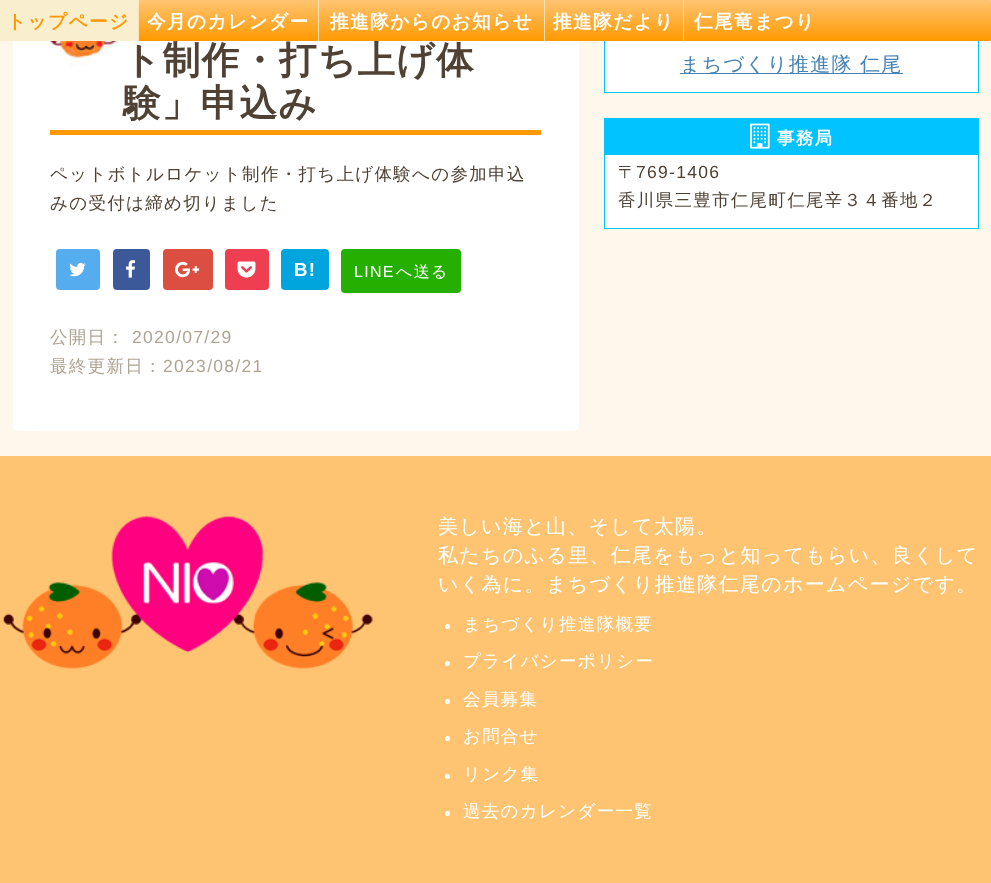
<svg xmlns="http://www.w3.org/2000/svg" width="991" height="883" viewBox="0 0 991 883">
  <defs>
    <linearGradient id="g1" gradientUnits="userSpaceOnUse" x1="496" y1="0" x2="496" y2="41"><stop offset="0" stop-color="rgb(255,196,114)"/><stop offset="1" stop-color="rgb(255,153,0)"/></linearGradient>
  </defs>
  <rect width="100%" height="100%" fill="rgb(254,247,235)"/>
  <rect x="13" y="-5" width="566" height="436" rx="5" fill="rgb(255,255,255)"/>
  <rect x="605" y="41" width="373" height="51" fill="rgb(255,255,255)"/>
  <rect x="604.5" y="1.5" width="374" height="91" fill="none" stroke="rgb(0,195,255)"/>
  <rect x="0" y="0" width="991" height="41" rx="1" fill="url(#g1)"/>
  <rect x="0" y="0" width="138" height="41" fill="rgb(249,238,206)"/>
  <rect x="138" y="0" width="1" height="41" fill="rgb(255,224,178)"/>
  <text x="7" y="28" font-family="WenQuanYi Zen Hei" font-size="18.75" font-weight="bold" letter-spacing="1.3" fill="rgb(255,153,0)">トップページ</text>
  <rect x="318" y="0" width="1" height="41" fill="rgb(255,224,178)"/>
  <text x="147" y="28" font-family="WenQuanYi Zen Hei" font-size="18.75" font-weight="bold" letter-spacing="1.3" fill="rgb(255,255,255)">今月のカレンダー</text>
  <rect x="544" y="0" width="1" height="41" fill="rgb(255,224,178)"/>
  <text x="330" y="28" font-family="WenQuanYi Zen Hei" font-size="18.75" font-weight="bold" letter-spacing="1.3" fill="rgb(255,255,255)">推進隊からのお知らせ</text>
  <rect x="683" y="0" width="1" height="41" fill="rgb(255,224,178)"/>
  <g font-family="WenQuanYi Zen Hei" font-size="18.75" font-weight="bold" letter-spacing="1.3" fill="rgb(255,255,255)">
    <text x="553" y="28">推進隊だより</text>
    <text x="694" y="28">仁尾竜まつり</text>
  </g>
  <image x="50" y="41" width="69" height="25" href="pic1.png"/>
  <rect x="50" y="130" width="491" height="5" fill="rgb(255,153,0)"/>
  <g font-family="WenQuanYi Zen Hei" font-size="37.5" font-weight="bold" letter-spacing="1.3" fill="rgb(79,66,52)">
    <text>
      <tspan x="123" y="73">ト制作・打ち上げ体</tspan>
      <tspan x="123" y="116">験」申込み</tspan>
    </text>
  </g>
  <g font-family="WenQuanYi Zen Hei" font-size="17.5" font-weight="500" letter-spacing="1.3" fill="rgb(79,66,52)">
    <text>
      <tspan x="50" y="180">ペットボトルロケット制作・打ち上げ体験への参加申込</tspan>
      <tspan x="50" y="209">みの受付は締め切りました</tspan>
    </text>
  </g>
  <rect x="56" y="249" width="44" height="41" rx="4" fill="rgb(85,172,238)"/>
  <image x="69" y="262" width="17" height="15" href="pic2.png"/>
  <rect x="113" y="249" width="37" height="41" rx="4" fill="rgb(59,89,152)"/>
  <image x="126" y="260" width="10" height="18" href="pic3.png"/>
  <rect x="163" y="249" width="50" height="41" rx="4" fill="rgb(220,78,65)"/>
  <image x="175" y="261" width="25" height="17" href="pic4.png"/>
  <rect x="225" y="249" width="44" height="41" rx="4" fill="rgb(240,62,81)"/>
  <image x="237" y="261" width="19" height="17" href="pic5.png"/>
  <rect x="281" y="249" width="48" height="41" rx="4" fill="rgb(0,165,222)"/>
  <text x="294" y="276" font-family="Liberation Sans" font-size="18.75" font-weight="bold" letter-spacing="1.3" fill="rgb(255,255,255)">B!</text>
  <rect x="341" y="249" width="120" height="44" rx="4" fill="rgb(37,175,0)"/>
  <text x="354" y="277" font-family="Liberation Sans" font-size="16" letter-spacing="1.3" fill="rgb(255,255,255)">LINE</text>
  <text x="396" y="277" font-family="WenQuanYi Zen Hei" font-size="16" font-weight="500" letter-spacing="1.3" fill="rgb(255,255,255)">へ送る</text>
  <text x="50" y="343" font-family="WenQuanYi Zen Hei" font-size="17.5" font-weight="500" letter-spacing="1.3" fill="rgb(175,164,147)">公開日：</text>
  <text x="132" y="343" font-family="Liberation Sans" font-size="17.5" letter-spacing="1.3" fill="rgb(175,164,147)">2020/07/29</text>
  <text x="50" y="372" font-family="WenQuanYi Zen Hei" font-size="17.5" font-weight="500" letter-spacing="1.3" fill="rgb(175,164,147)">最終更新日：</text>
  <text x="163" y="372" font-family="Liberation Sans" font-size="17.5" letter-spacing="1.3" fill="rgb(175,164,147)">2023/08/21</text>
  <rect x="680" y="73" width="223" height="1" fill="rgb(70,130,180)"/>
  <text x="680" y="71" font-family="WenQuanYi Zen Hei" font-size="20" font-weight="500" letter-spacing="1.3" fill="rgb(70,130,180)">まちづくり推進隊 仁尾</text>
  <rect x="605" y="155" width="373" height="73" fill="rgb(255,255,255)"/>
  <rect x="604.5" y="118.5" width="374" height="110" fill="none" stroke="rgb(0,195,255)"/>
  <rect x="605" y="119" width="373" height="36" fill="rgb(0,195,255)"/>
  <image x="750" y="123" width="20" height="26" href="pic6.png"/>
  <text x="777" y="144" font-family="WenQuanYi Zen Hei" font-size="17.5" font-weight="bold" letter-spacing="1.3" fill="rgb(255,255,255)">事務局</text>
  <text x="618" y="178" font-family="WenQuanYi Zen Hei" font-size="17.5" font-weight="500" letter-spacing="1.3" fill="rgb(79,66,52)">〒</text>
  <text x="636" y="178" font-family="Liberation Sans" font-size="17.5" letter-spacing="1.3" fill="rgb(79,66,52)">769-1406</text>
  <text x="618" y="206" font-family="WenQuanYi Zen Hei" font-size="17.5" font-weight="500" letter-spacing="1.3" fill="rgb(79,66,52)">香川県三豊市仁尾町仁尾辛３４番地２</text>
  <rect x="0" y="456" width="991" height="427" fill="rgb(255,196,114)"/>
  <image x="3" y="515" width="370" height="154" href="pic7.png"/>
  <g font-family="WenQuanYi Zen Hei" font-size="20" font-weight="500" letter-spacing="1.3" fill="rgb(255,255,255)">
    <text>
      <tspan x="438" y="533">美しい海と山、そして太陽。</tspan>
      <tspan x="438" y="562">私たちのふる里、仁尾をもっと知ってもらい、良くして</tspan>
      <tspan x="438" y="591">いく為に。まちづくり推進隊仁尾のホームページです。</tspan>
    </text>
  </g>
  <circle cx="447.5" cy="626.5" r="2.5" fill="rgb(255,255,255)"/>
  <text x="463" y="630" font-family="WenQuanYi Zen Hei" font-size="17.5" font-weight="500" letter-spacing="1.3" fill="rgb(255,255,255)">まちづくり推進隊概要</text>
  <circle cx="447.5" cy="663.5" r="2.5" fill="rgb(255,255,255)"/>
  <text x="463" y="667" font-family="WenQuanYi Zen Hei" font-size="17.5" font-weight="500" letter-spacing="1.3" fill="rgb(255,255,255)">プライバシーポリシー</text>
  <circle cx="447.5" cy="701.5" r="2.5" fill="rgb(255,255,255)"/>
  <text x="463" y="705" font-family="WenQuanYi Zen Hei" font-size="17.5" font-weight="500" letter-spacing="1.3" fill="rgb(255,255,255)">会員募集</text>
  <circle cx="447.5" cy="738.5" r="2.5" fill="rgb(255,255,255)"/>
  <text x="463" y="742" font-family="WenQuanYi Zen Hei" font-size="17.5" font-weight="500" letter-spacing="1.3" fill="rgb(255,255,255)">お問合せ</text>
  <circle cx="447.5" cy="776.5" r="2.5" fill="rgb(255,255,255)"/>
  <text x="463" y="780" font-family="WenQuanYi Zen Hei" font-size="17.5" font-weight="500" letter-spacing="1.3" fill="rgb(255,255,255)">リンク集</text>
  <circle cx="447.5" cy="813.5" r="2.5" fill="rgb(255,255,255)"/>
  <text x="463" y="817" font-family="WenQuanYi Zen Hei" font-size="17.5" font-weight="500" letter-spacing="1.3" fill="rgb(255,255,255)">過去のカレンダー一覧</text>
</svg>
